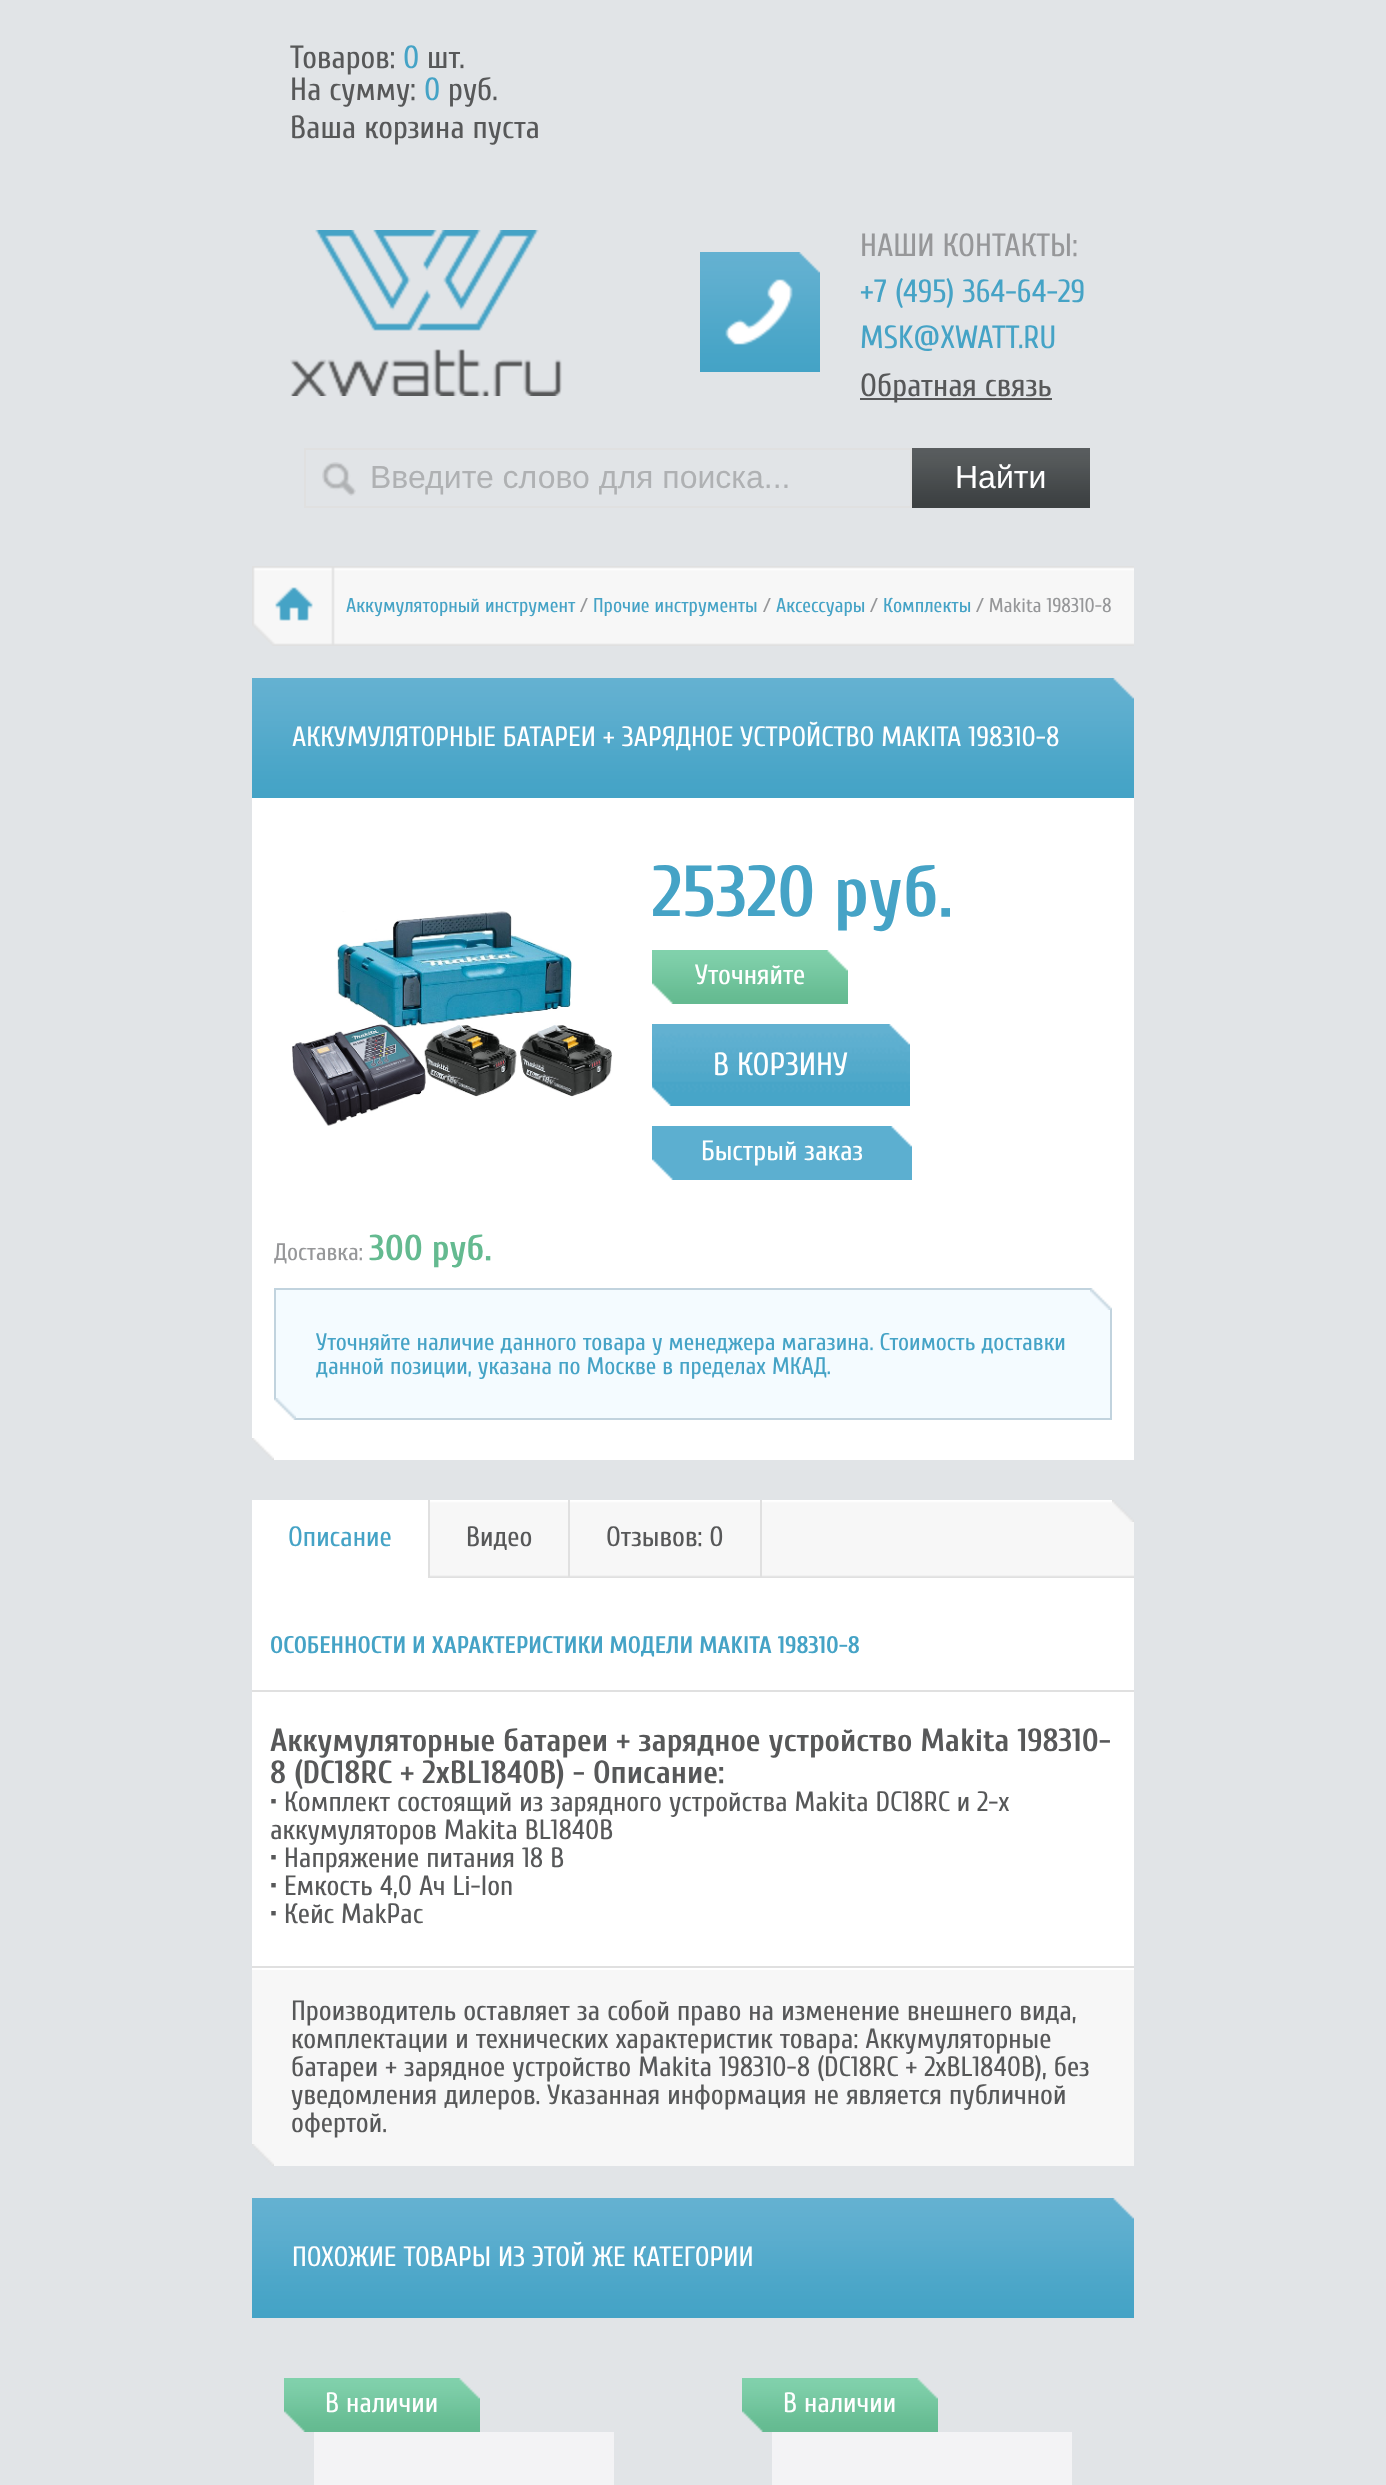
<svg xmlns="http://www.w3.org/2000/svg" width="1386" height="2485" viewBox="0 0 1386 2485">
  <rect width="100%" height="100%" fill="rgb(225,228,231)"/>
  <text x="290" y="68" font-family="Cuprum" font-size="32" fill="rgb(87,88,89)">Товаров:</text>
  <text x="403" y="68" font-family="Cuprum" font-size="32" fill="rgb(69,163,198)">0</text>
  <g font-family="Cuprum" font-size="32" fill="rgb(87,88,89)">
    <text x="427" y="68">шт.</text>
    <text x="290" y="100">На сумму:</text>
  </g>
  <text x="424" y="100" font-family="Cuprum" font-size="32" fill="rgb(69,163,198)">0</text>
  <g font-family="Cuprum" font-size="32" fill="rgb(87,88,89)">
    <text x="448" y="100">руб.</text>
    <text x="290" y="138">Ваша корзина пуста</text>
  </g>
  <image x="290" y="230" width="272" height="166" href="pic1.png"/>
  <image x="700" y="252" width="120" height="120" href="pic2.png"/>
  <text x="860" y="256" font-family="Cuprum" font-size="32" fill="rgb(150,151,153)">НАШИ КОНТАКТЫ:</text>
  <g font-family="Cuprum" font-size="32" fill="rgb(69,163,198)">
    <text>
      <tspan x="860" y="302">+7 (495) 364-64-29</tspan>
      <tspan x="860" y="348">MSK@XWATT.RU</tspan>
    </text>
  </g>
  <rect x="860" y="398" width="192" height="2" fill="rgb(87,88,89)"/>
  <text x="860" y="396" font-family="Cuprum" font-size="32" fill="rgb(87,88,89)">Обратная связь</text>
  <image x="322" y="462" width="34" height="34" href="pic3.png"/>
  <rect x="305" y="449" width="606" height="58" fill="none" stroke="rgb(224,224,224)" stroke-width="2"/>
  <text x="370" y="488" font-family="Liberation Sans" font-size="32" fill="rgb(175,177,179)">Введите слово для поиска...</text>
  <image x="912" y="448" width="178" height="60" href="pic4.png"/>
  <text x="955" y="488" font-family="Liberation Sans" font-size="32" fill="rgb(255,255,255)">Найти</text>
  <image x="252" y="566" width="882" height="80" href="pic5.png"/>
  <text x="346" y="612" font-family="Cuprum" font-size="20" fill="rgb(69,163,198)">Аккумуляторный инструмент</text>
  <text x="580" y="612" font-family="Cuprum" font-size="20" fill="rgb(150,151,153)">/</text>
  <text x="593" y="612" font-family="Cuprum" font-size="20" fill="rgb(69,163,198)">Прочие инструменты</text>
  <text x="763" y="612" font-family="Cuprum" font-size="20" fill="rgb(150,151,153)">/</text>
  <text x="776" y="612" font-family="Cuprum" font-size="20" fill="rgb(69,163,198)">Аксессуары</text>
  <text x="870" y="612" font-family="Cuprum" font-size="20" fill="rgb(150,151,153)">/</text>
  <text x="883" y="612" font-family="Cuprum" font-size="20" fill="rgb(69,163,198)">Комплекты</text>
  <text x="976" y="612" font-family="Cuprum" font-size="20" fill="rgb(150,151,153)">/ Makita 198310-8</text>
  <image x="252" y="678" width="882" height="120" href="pic6.png"/>
  <text x="292" y="746" font-family="Cuprum" font-size="28" fill="rgb(255,255,255)">АККУМУЛЯТОРНЫЕ БАТАРЕИ + ЗАРЯДНОЕ УСТРОЙСТВО MAKITA 198310-8</text>
  <rect x="252" y="798" width="882" height="662" fill="rgb(255,255,255)"/>
  <text x="652" y="916" font-family="Cuprum" font-size="72" font-weight="bold" fill="rgb(69,163,198)">25320 руб.</text>
  <image x="652" y="950" width="196" height="54" href="pic7.png"/>
  <text x="695" y="984" font-family="Cuprum" font-size="28" fill="rgb(255,255,255)">Уточняйте</text>
  <image x="652" y="1024" width="258" height="82" href="pic8.png"/>
  <text x="713" y="1075" font-family="Cuprum" font-size="32" fill="rgb(255,255,255)">В КОРЗИНУ</text>
  <image x="652" y="1126" width="260" height="54" href="pic9.png"/>
  <text x="701" y="1160" font-family="Cuprum" font-size="28" fill="rgb(255,255,255)">Быстрый заказ</text>
  <text x="274" y="1260" font-family="Cuprum" font-size="24" fill="rgb(150,151,153)">Доставка:</text>
  <text x="369" y="1260" font-family="Cuprum" font-size="36" font-weight="bold" fill="rgb(100,186,144)">300 руб.</text>
  <rect x="275" y="1289" width="836" height="130" fill="rgb(244,251,255)" stroke="rgb(193,211,222)" stroke-width="2"/>
  <image x="1090" y="1288" width="22" height="22" href="pic10.png"/>
  <g font-family="Cuprum" font-size="24" fill="rgb(69,163,198)">
    <text>
      <tspan x="316" y="1350">Уточняйте наличие данного товара у менеджера магазина. Стоимость доставки</tspan>
      <tspan x="316" y="1374">данной позиции, указана по Москве в пределах МКАД.</tspan>
    </text>
  </g>
  <image x="274" y="1398" width="22" height="22" href="pic11.png"/>
  <image x="292" y="911" width="320" height="215" href="pic12.png"/>
  <image x="252" y="1438" width="22" height="22" href="pic13.png"/>
  <rect x="252" y="1578" width="882" height="388" fill="rgb(255,255,255)"/>
  <image x="762" y="1500" width="372" height="78" href="pic15.png"/>
  <image x="1112" y="1500" width="22" height="22" href="pic14.png"/>
  <rect x="252" y="1500" width="176" height="78" fill="rgb(255,255,255)"/>
  <rect x="428" y="1500" width="2" height="78" fill="rgb(224,224,224)"/>
  <text x="288" y="1546" font-family="Cuprum" font-size="28" fill="rgb(69,163,198)">Описание</text>
  <image x="430" y="1500" width="138" height="78" href="pic16.png"/>
  <rect x="568" y="1500" width="2" height="78" fill="rgb(224,224,224)"/>
  <text x="466" y="1546" font-family="Cuprum" font-size="28" fill="rgb(87,88,89)">Видео</text>
  <image x="570" y="1500" width="190" height="78" href="pic17.png"/>
  <rect x="760" y="1500" width="2" height="78" fill="rgb(224,224,224)"/>
  <text x="606" y="1546" font-family="Cuprum" font-size="28" fill="rgb(87,88,89)">Отзывов: 0</text>
  <rect x="252" y="1690" width="882" height="2" fill="rgb(224,224,224)"/>
  <rect x="252" y="1966" width="882" height="2" fill="rgb(224,224,224)"/>
  <text x="270" y="1653" font-family="Cuprum" font-size="24" font-weight="bold" fill="rgb(69,163,198)">ОСОБЕННОСТИ И ХАРАКТЕРИСТИКИ МОДЕЛИ MAKITA 198310-8</text>
  <g font-family="Cuprum" font-size="32" font-weight="bold" fill="rgb(87,88,89)">
    <text>
      <tspan x="270" y="1751">Аккумуляторные батареи + зарядное устройство Makita 198310-</tspan>
      <tspan x="270" y="1783">8 (DC18RC + 2хBL1840B) - Описание:</tspan>
    </text>
  </g>
  <g font-family="Cuprum" font-size="28" fill="rgb(87,88,89)">
    <text>
      <tspan x="270" y="1811">• Комплект состоящий из зарядного устройства Makita DC18RC и 2-х</tspan>
      <tspan x="270" y="1839">аккумуляторов Makita BL1840B</tspan>
      <tspan x="270" y="1867">• Напряжение питания 18 В</tspan>
      <tspan x="270" y="1895">• Емкость 4,0 Ач Li-Ion</tspan>
      <tspan x="270" y="1923">• Кейс MakPac</tspan>
    </text>
  </g>
  <rect x="252" y="1970" width="882" height="196" fill="rgb(247,247,247)"/>
  <rect x="252" y="1968" width="882" height="2" fill="rgb(255,255,255)"/>
  <g font-family="Cuprum" font-size="28" fill="rgb(87,88,89)">
    <text>
      <tspan x="291" y="2020">Производитель оставляет за собой право на изменение внешнего вида,</tspan>
      <tspan x="291" y="2048">комплектации и технических характеристик товара: Аккумуляторные</tspan>
      <tspan x="291" y="2076">батареи + зарядное устройство Makita 198310-8 (DC18RC + 2хBL1840B), без</tspan>
      <tspan x="291" y="2104">уведомления дилеров. Указанная информация не является публичной</tspan>
      <tspan x="291" y="2132">офертой.</tspan>
    </text>
  </g>
  <image x="252" y="2144" width="22" height="22" href="pic18.png"/>
  <image x="252" y="2198" width="882" height="120" href="pic6.png"/>
  <text x="292" y="2266" font-family="Cuprum" font-size="28" fill="rgb(255,255,255)">ПОХОЖИЕ ТОВАРЫ ИЗ ЭТОЙ ЖЕ КАТЕГОРИИ</text>
  <image x="284" y="2378" width="196" height="54" href="pic19.png"/>
  <text x="325" y="2412" font-family="Cuprum" font-size="28" fill="rgb(255,255,255)">В наличии</text>
  <rect x="314" y="2432" width="300" height="53" fill="rgb(243,243,245)"/>
  <image x="742" y="2378" width="196" height="54" href="pic19.png"/>
  <text x="783" y="2412" font-family="Cuprum" font-size="28" fill="rgb(255,255,255)">В наличии</text>
  <rect x="772" y="2432" width="300" height="53" fill="rgb(243,243,245)"/>
</svg>
